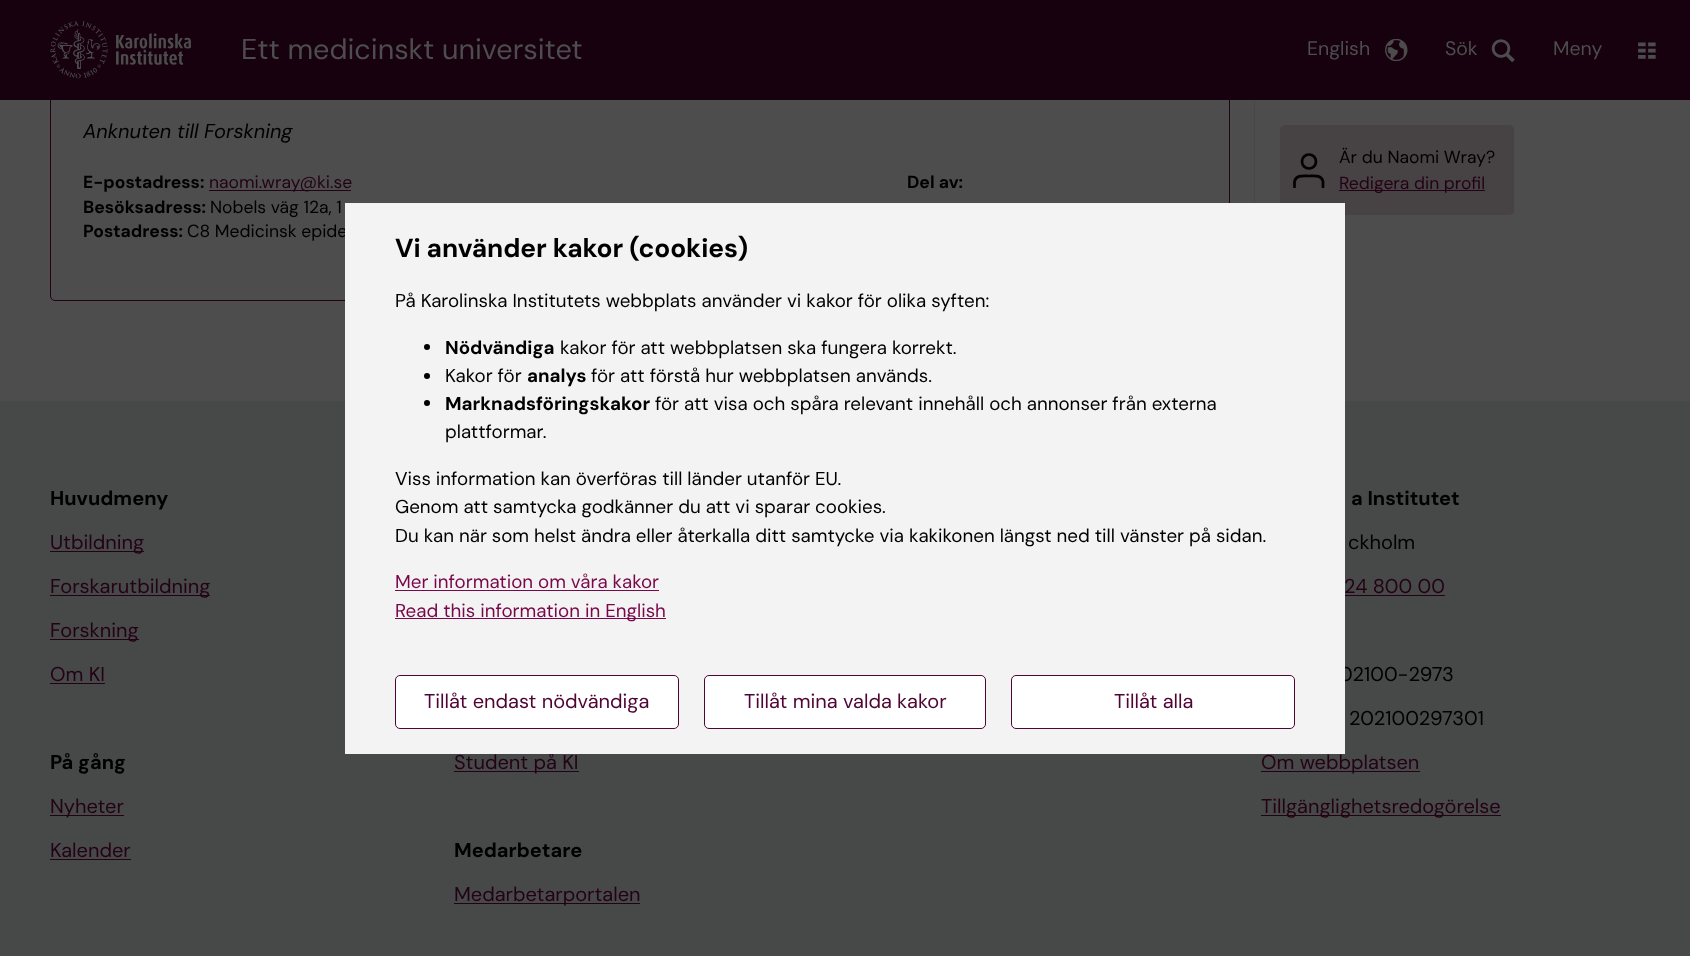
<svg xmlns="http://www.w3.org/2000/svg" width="1690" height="956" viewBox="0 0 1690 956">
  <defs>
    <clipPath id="clip1"><rect x="1293" y="153" width="32" height="35"/></clipPath>
  </defs>
  <rect width="100%" height="100%" fill="rgb(77,77,77)"/>
  <rect x="50.5" y="31.5" width="1179" height="269" rx="4.5" fill="none" stroke="rgb(36,2,22)"/>
  <rect x="0" y="0" width="1690" height="100" fill="rgb(24,1,15)"/>
  <image x="50" y="21" width="141" height="58" href="pic1.png"/>
  <text x="241" y="59" font-family="DM Sans" font-size="28.75" fill="rgb(77,77,77)">Ett medicinskt universitet</text>
  <image x="1385" y="39" width="23" height="22" href="pic2.png"/>
  <text x="1307" y="55" font-family="DM Sans" font-size="19.5" fill="rgb(77,77,77)">English</text>
  <image x="1491" y="39" width="24" height="24" href="pic3.png"/>
  <text x="1445" y="55" font-family="DM Sans" font-size="19.5" fill="rgb(77,77,77)">Sök</text>
  <image x="1638" y="42" width="18" height="17" href="pic4.png"/>
  <text x="1553" y="55" font-family="DM Sans" font-size="19.5" fill="rgb(77,77,77)">Meny</text>
  <text x="83" y="138" font-family="DM Sans" font-size="20" font-style="italic" fill="rgb(0,0,0)">Anknuten till Forskning</text>
  <text x="83" y="188" font-family="DM Sans" font-size="17.5" font-weight="bold" fill="rgb(0,0,0)">E-postadress:</text>
  <rect x="209" y="190" width="142" height="1" fill="rgb(36,2,22)"/>
  <text x="209" y="188" font-family="DM Sans" font-size="17.5" fill="rgb(36,2,22)">naomi.wray@ki.se</text>
  <text x="83" y="213" font-family="DM Sans" font-size="17.5" font-weight="bold" fill="rgb(0,0,0)">Besöksadress:</text>
  <text x="210" y="213" font-family="DM Sans" font-size="17.5" fill="rgb(0,0,0)">Nobels väg 12a, 1</text>
  <text x="83" y="237" font-family="DM Sans" font-size="17.5" font-weight="bold" fill="rgb(0,0,0)">Postadress:</text>
  <text x="187" y="237" font-family="DM Sans" font-size="17.5" fill="rgb(0,0,0)">C8 Medicinsk epide</text>
  <text x="907" y="188" font-family="DM Sans" font-size="17.5" font-weight="bold" fill="rgb(0,0,0)">Del av:</text>
  <rect x="1254" y="100" width="1" height="103" fill="rgb(72,72,72)"/>
  <rect x="1280" y="125" width="234" height="90" rx="5" fill="rgb(71,66,68)"/>
  <g clip-path="url(#clip1)">
    <path d="M1323 187V181.5C1321.5 174.5 1314 176 1309 176C1303.5 176 1296 174.5 1294.5 181.5V187" fill="none" stroke="rgb(0,0,0)" stroke-width="2.7" stroke-linecap="round" stroke-linejoin="round"/>
  </g>
  <circle cx="1309" cy="161.5" r="7" fill="none" stroke="rgb(0,0,0)" stroke-width="2.7"/>
  <text x="1339" y="163" font-family="DM Sans" font-size="17.5" fill="rgb(0,0,0)">Är du Naomi Wray?</text>
  <rect x="1339" y="190" width="146" height="1" fill="rgb(36,2,22)"/>
  <text x="1339" y="189" font-family="DM Sans" font-size="17.5" fill="rgb(36,2,22)">Redigera din profil</text>
  <rect x="0" y="401" width="1690" height="555" fill="rgb(71,73,73)"/>
  <text x="50" y="505" font-family="DM Sans" font-size="20" font-weight="bold" fill="rgb(0,0,0)">Huvudmeny</text>
  <rect x="50" y="551" width="94" height="1" fill="rgb(36,2,22)"/>
  <text x="50" y="549" font-family="DM Sans" font-size="20" fill="rgb(36,2,22)">Utbildning</text>
  <rect x="50" y="595" width="160" height="1" fill="rgb(36,2,22)"/>
  <text x="50" y="593" font-family="DM Sans" font-size="20" fill="rgb(36,2,22)">Forskarutbildning</text>
  <rect x="50" y="639" width="89" height="1" fill="rgb(36,2,22)"/>
  <g font-family="DM Sans" font-size="20" fill="rgb(36,2,22)">
    <text x="50" y="637">Forskning</text>
    <text x="50" y="681">Om KI</text>
  </g>
  <rect x="50" y="683" width="55" height="1" fill="rgb(36,2,22)"/>
  <text x="50" y="769" font-family="DM Sans" font-size="20" font-weight="bold" fill="rgb(0,0,0)">På gång</text>
  <rect x="50" y="815" width="74" height="1" fill="rgb(36,2,22)"/>
  <g font-family="DM Sans" font-size="20" fill="rgb(36,2,22)">
    <text x="50" y="813">Nyheter</text>
    <text x="50" y="857">Kalender</text>
  </g>
  <rect x="50" y="859" width="81" height="1" fill="rgb(36,2,22)"/>
  <rect x="454" y="771" width="125" height="1" fill="rgb(36,2,22)"/>
  <text x="454" y="769" font-family="DM Sans" font-size="20" fill="rgb(36,2,22)">Student på KI</text>
  <text x="454" y="857" font-family="DM Sans" font-size="20" font-weight="bold" fill="rgb(0,0,0)">Medarbetare</text>
  <rect x="454" y="903" width="186" height="1" fill="rgb(36,2,22)"/>
  <text x="454" y="901" font-family="DM Sans" font-size="20" fill="rgb(36,2,22)">Medarbetarportalen</text>
  <text x="1351" y="505" font-family="DM Sans" font-size="20" font-weight="bold" fill="rgb(0,0,0)">a Institutet</text>
  <text x="1348" y="549" font-family="DM Sans" font-size="20" fill="rgb(0,0,0)">ckholm</text>
  <text x="1344" y="593" font-family="DM Sans" font-size="20" fill="rgb(36,2,22)">24 800 00</text>
  <rect x="1345" y="595" width="100" height="1" fill="rgb(36,2,22)"/>
  <g font-family="DM Sans" font-size="20" fill="rgb(0,0,0)">
    <text x="1339" y="681">02100-2973</text>
    <text x="1349" y="725">202100297301</text>
  </g>
  <rect x="1261" y="771" width="159" height="1" fill="rgb(36,2,22)"/>
  <text x="1261" y="769" font-family="DM Sans" font-size="20" fill="rgb(36,2,22)">Om webbplatsen</text>
  <rect x="1261" y="815" width="240" height="1" fill="rgb(36,2,22)"/>
  <text x="1261" y="813" font-family="DM Sans" font-size="20" fill="rgb(36,2,22)">Tillgänglighetsredogörelse</text>
  <rect x="345" y="204" width="1000" height="550" fill="rgb(243,243,243)"/>
  <rect x="345" y="203" width="1000" height="1" fill="rgb(241,241,241)"/>
  <text x="395" y="257" font-family="DM Sans" font-size="26.25" font-weight="bold" letter-spacing="-0.1" fill="rgb(0,0,0)">Vi använder kakor (cookies)</text>
  <text x="395" y="307" font-family="DM Sans" font-size="18.75" fill="rgb(0,0,0)">På Karolinska Institutets webbplats använder vi kakor för olika syften:</text>
  <circle cx="427" cy="347" r="3" fill="rgb(0,0,0)"/>
  <text x="445" y="354" font-family="DM Sans" font-size="18.75" font-weight="bold" fill="rgb(0,0,0)">Nödvändiga</text>
  <text x="560" y="354" font-family="DM Sans" font-size="18.75" fill="rgb(0,0,0)">kakor för att webbplatsen ska fungera korrekt.</text>
  <circle cx="427" cy="376" r="3" fill="rgb(0,0,0)"/>
  <text x="445" y="382" font-family="DM Sans" font-size="18.75" fill="rgb(0,0,0)">Kakor för</text>
  <text x="527" y="382" font-family="DM Sans" font-size="18.75" font-weight="bold" fill="rgb(0,0,0)">analys</text>
  <text x="591" y="382" font-family="DM Sans" font-size="18.75" fill="rgb(0,0,0)">för att förstå hur webbplatsen används.</text>
  <circle cx="427" cy="403" r="3" fill="rgb(0,0,0)"/>
  <text x="445" y="410" font-family="DM Sans" font-size="18.75" font-weight="bold" fill="rgb(0,0,0)">Marknadsföringskakor</text>
  <g font-family="DM Sans" font-size="18.75" fill="rgb(0,0,0)">
    <text x="655" y="410">för att visa och spåra relevant innehåll och annonser från externa</text>
    <text x="445" y="438">plattformar.</text>
    <text>
      <tspan x="395" y="485">Viss information kan överföras till länder utanför EU.</tspan>
      <tspan x="395" y="513">Genom att samtycka godkänner du att vi sparar cookies.</tspan>
      <tspan x="395" y="542">Du kan när som helst ändra eller återkalla ditt samtycke via kakikonen längst ned till vänster på sidan.</tspan>
    </text>
  </g>
  <text x="395" y="588" font-family="DM Sans" font-size="18.75" fill="rgb(121,8,74)">Mer information om våra kakor</text>
  <rect x="395" y="590" width="264" height="1" fill="rgb(121,8,74)"/>
  <rect x="395" y="618" width="271" height="1" fill="rgb(121,8,74)"/>
  <text x="395" y="617" font-family="DM Sans" font-size="18.75" fill="rgb(121,8,74)">Read this information in English</text>
  <rect x="395.5" y="675.5" width="283" height="53" rx="4.5" fill="rgb(255,255,255)" stroke="rgb(79,4,51)"/>
  <text x="424" y="708" font-family="DM Sans" font-size="20" fill="rgb(79,4,51)">Tillåt endast nödvändiga</text>
  <rect x="704.5" y="675.5" width="281" height="53" rx="4.5" fill="rgb(255,255,255)" stroke="rgb(79,4,51)"/>
  <text x="744" y="708" font-family="DM Sans" font-size="20" fill="rgb(79,4,51)">Tillåt mina valda kakor</text>
  <rect x="1011.5" y="675.5" width="283" height="53" rx="4.5" fill="rgb(255,255,255)" stroke="rgb(79,4,51)"/>
  <text x="1114" y="708" font-family="DM Sans" font-size="20" fill="rgb(79,4,51)">Tillåt alla</text>
</svg>
